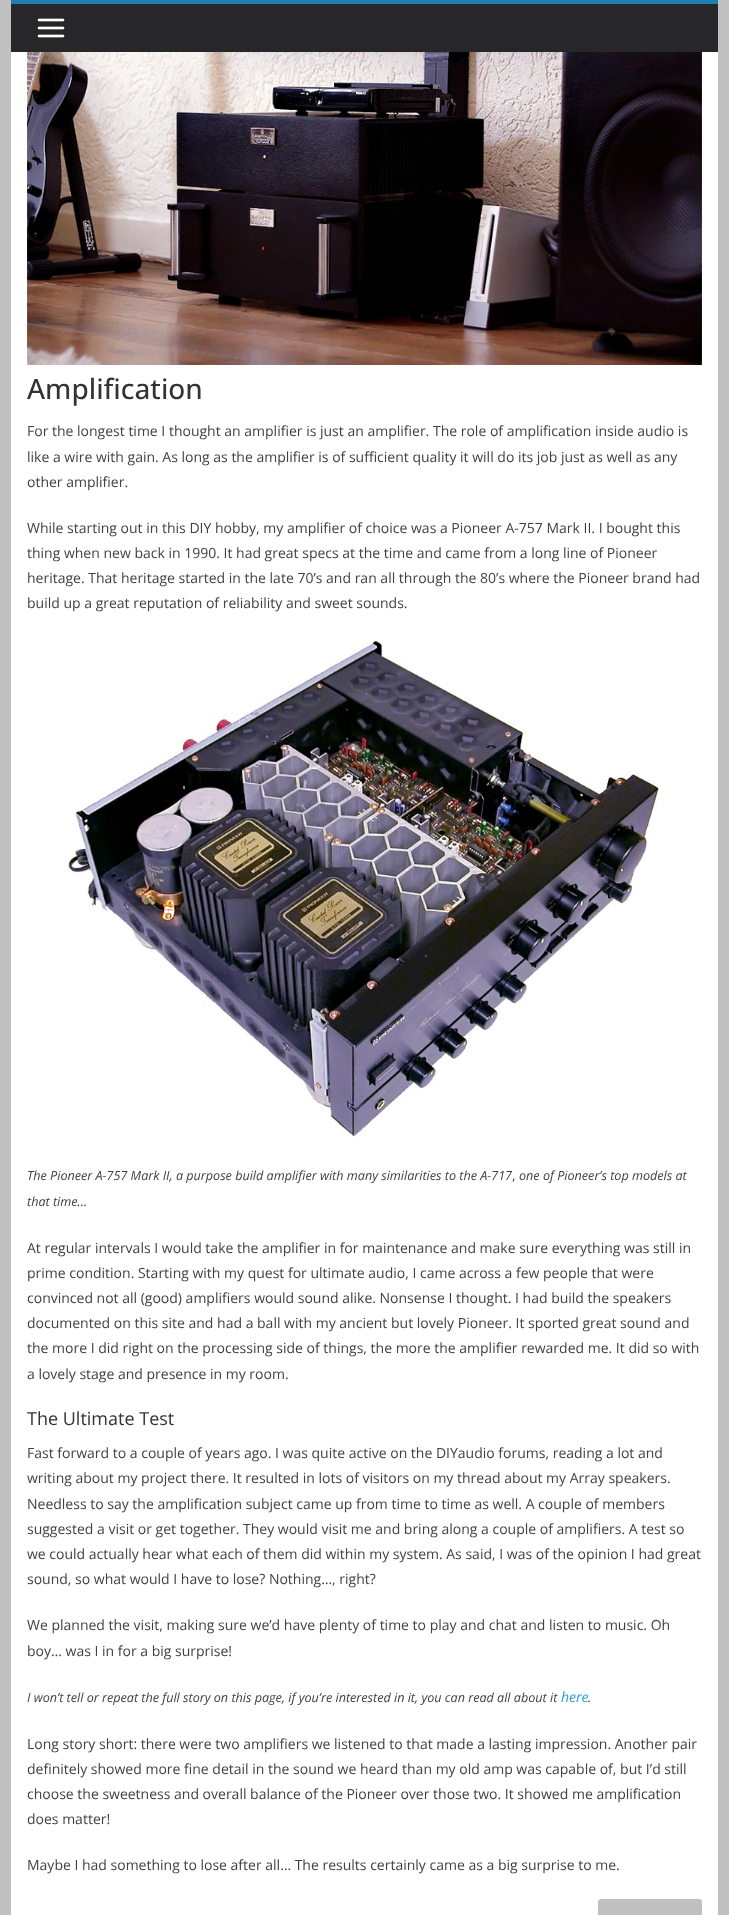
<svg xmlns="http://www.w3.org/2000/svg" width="729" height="1915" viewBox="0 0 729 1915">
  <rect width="100%" height="100%" fill="rgb(192,192,192)"/>
  <rect x="11" y="4" width="707" height="48" fill="rgb(39,39,42)"/>
  <rect x="11" y="0" width="707" height="4" fill="rgb(32,125,175)"/>
  <image x="37" y="18" width="28" height="20" href="pic1.png"/>
  <rect x="11" y="52" width="707" height="1863" fill="rgb(255,255,255)"/>
  <image x="27" y="52" width="675" height="313" href="pic2.png"/>
  <text x="27" y="399" font-family="Open Sans" font-size="28" font-weight="500" fill="rgb(51,51,51)">Amplification</text>
  <g font-family="Open Sans" font-size="14" fill="rgb(63,63,70)">
    <text>
      <tspan x="27" y="436">For the longest time I thought an amplifier is just an amplifier. The role of amplification inside audio is</tspan>
      <tspan x="27" y="462">like a wire with gain. As long as the amplifier is of sufficient quality it will do its job just as well as any</tspan>
      <tspan x="27" y="487">other amplifier.</tspan>
    </text>
    <text>
      <tspan x="27" y="533">While starting out in this DIY hobby, my amplifier of choice was a Pioneer A-757 Mark II. I bought this</tspan>
      <tspan x="27" y="558">thing when new back in 1990. It had great specs at the time and came from a long line of Pioneer</tspan>
      <tspan x="27" y="583">heritage. That heritage started in the late 70’s and ran all through the 80’s where the Pioneer brand had</tspan>
      <tspan x="27" y="608">build up a great reputation of reliability and sweet sounds.</tspan>
    </text>
  </g>
  <image x="67" y="640" width="592" height="497" href="pic3.png"/>
  <text x="27" y="1180" font-family="Open Sans" font-size="12.6" font-style="italic" fill="rgb(63,63,70)">The Pioneer A-757 Mark II, a purpose build amplifier with many similarities to the A-717</text>
  <text x="512" y="1180" font-family="Open Sans" font-size="14" fill="rgb(63,63,70)">,</text>
  <g font-family="Open Sans" font-size="12.6" font-style="italic" fill="rgb(63,63,70)">
    <text x="519" y="1180">one of Pioneer’s top models at</text>
    <text x="27" y="1206">that time…</text>
  </g>
  <g font-family="Open Sans" font-size="14" fill="rgb(63,63,70)">
    <text>
      <tspan x="27" y="1253">At regular intervals I would take the amplifier in for maintenance and make sure everything was still in</tspan>
      <tspan x="27" y="1278">prime condition. Starting with my quest for ultimate audio, I came across a few people that were</tspan>
      <tspan x="27" y="1303">convinced not all (good) amplifiers would sound alike. Nonsense I thought. I had build the speakers</tspan>
      <tspan x="27" y="1328">documented on this site and had a ball with my ancient but lovely Pioneer. It sported great sound and</tspan>
      <tspan x="27" y="1353">the more I did right on the processing side of things, the more the amplifier rewarded me. It did so with</tspan>
      <tspan x="27" y="1379">a lovely stage and presence in my room.</tspan>
    </text>
  </g>
  <text x="27" y="1425" font-family="Open Sans" font-size="18" fill="rgb(51,51,51)">The Ultimate Test</text>
  <g font-family="Open Sans" font-size="14" fill="rgb(63,63,70)">
    <text>
      <tspan x="27" y="1458">Fast forward to a couple of years ago. I was quite active on the DIYaudio forums, reading a lot and</tspan>
      <tspan x="27" y="1483">writing about my project there. It resulted in lots of visitors on my thread about my Array speakers.</tspan>
      <tspan x="27" y="1509">Needless to say the amplification subject came up from time to time as well. A couple of members</tspan>
      <tspan x="27" y="1534">suggested a visit or get together. They would visit me and bring along a couple of amplifiers. A test so</tspan>
      <tspan x="27" y="1559">we could actually hear what each of them did within my system. As said, I was of the opinion I had great</tspan>
      <tspan x="27" y="1584">sound, so what would I have to lose? Nothing…, right?</tspan>
    </text>
    <text>
      <tspan x="27" y="1630">We planned the visit, making sure we’d have plenty of time to play and chat and listen to music. Oh</tspan>
      <tspan x="27" y="1656">boy… was I in for a big surprise!</tspan>
    </text>
  </g>
  <text x="27" y="1702" font-family="Open Sans" font-size="12.6" font-style="italic" fill="rgb(63,63,70)">I won’t tell or repeat the full story on this page, if you’re interested in it, you can read all about it</text>
  <text x="561" y="1702" font-family="Open Sans" font-size="14" font-style="italic" fill="rgb(40,157,204)">here</text>
  <text x="588" y="1702" font-family="Open Sans" font-size="12.6" font-style="italic" fill="rgb(63,63,70)">.</text>
  <g font-family="Open Sans" font-size="14" fill="rgb(63,63,70)">
    <text>
      <tspan x="27" y="1749">Long story short: there were two amplifiers we listened to that made a lasting impression. Another pair</tspan>
      <tspan x="27" y="1774">definitely showed more fine detail in the sound we heard than my old amp was capable of, but I’d still</tspan>
      <tspan x="27" y="1799">choose the sweetness and overall balance of the Pioneer over those two. It showed me amplification</tspan>
      <tspan x="27" y="1824">does matter!</tspan>
    </text>
    <text x="27" y="1870">Maybe I had something to lose after all… The results certainly came as a big surprise to me.</text>
  </g>
  <rect x="598" y="1899" width="104" height="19" rx="3" fill="rgb(192,192,192)"/>
</svg>
